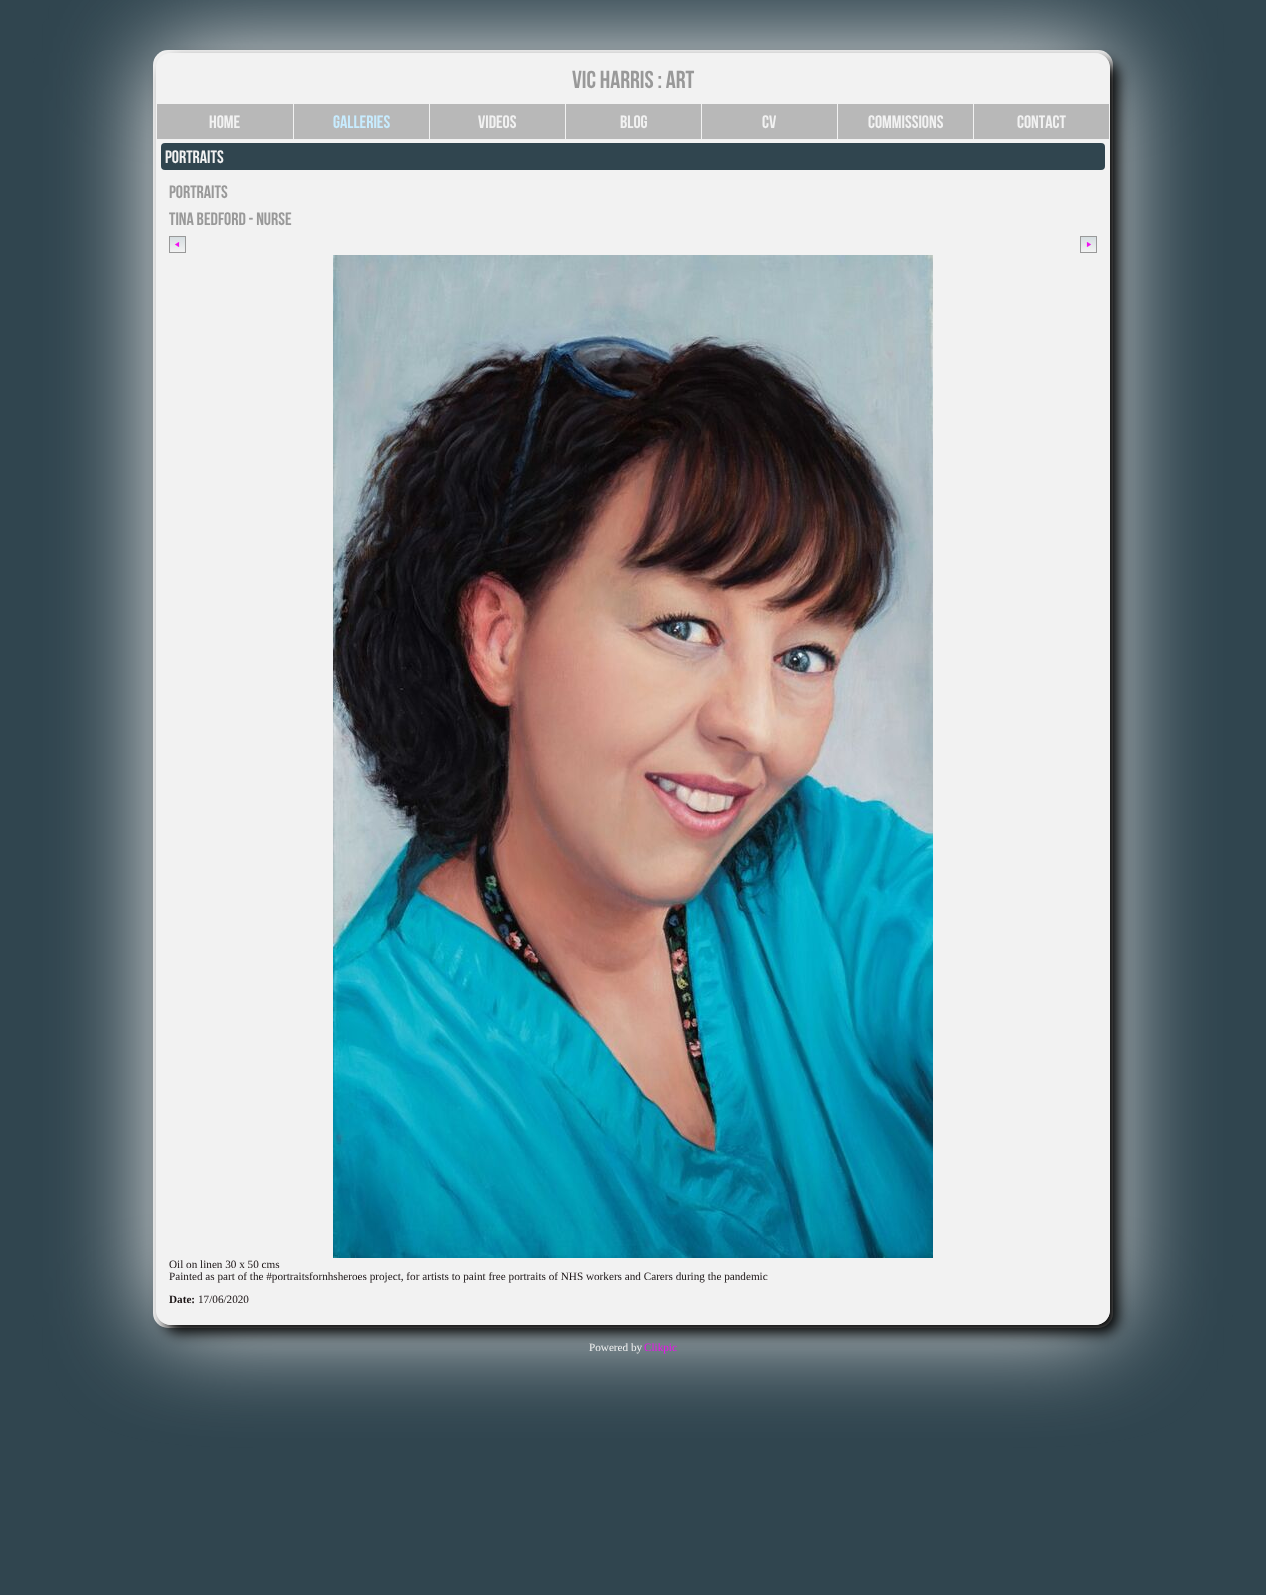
<svg xmlns="http://www.w3.org/2000/svg" width="1266" height="1595" viewBox="0 0 1266 1595">
  <defs>
    <clipPath id="clip1"><path d="M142 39H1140V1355H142ZM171 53H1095C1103.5 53 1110 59.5 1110 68V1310C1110 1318.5 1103.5 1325 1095 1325H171C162.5 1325 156 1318.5 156 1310V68C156 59.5 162.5 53 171 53Z" clip-rule="evenodd"/></clipPath>
    <linearGradient id="g1" gradientUnits="userSpaceOnUse" x1="178" y1="237" x2="178" y2="252"><stop offset="0" stop-color="rgb(213,221,224)"/><stop offset="1" stop-color="rgb(242,242,242)"/></linearGradient>
    <linearGradient id="g2" gradientUnits="userSpaceOnUse" x1="1089" y1="237" x2="1089" y2="252"><stop offset="0" stop-color="rgb(213,221,224)"/><stop offset="1" stop-color="rgb(242,242,242)"/></linearGradient>
  </defs>
  <rect width="100%" height="100%" fill="rgb(48,69,79)"/>
  <rect x="153" y="50" width="960" height="1278" rx="15" fill="rgb(242,242,242)" filter="blur(50px)"/>
  <rect x="153" y="50" width="960" height="1278" rx="15" fill="rgb(242,242,242)"/>
  <g clip-path="url(#clip1)">
    <rect x="164" y="61" width="954" height="1272" rx="15" fill="rgb(0,0,0)" filter="blur(7px)"/>
  </g>
  <rect x="156.5" y="53.5" width="953" height="1271" rx="14.5" fill="none" stroke="rgb(242,242,242)"/>
  <text x="572" y="88" font-family="Bebas Neue" font-size="24.5" fill="rgb(153,153,153)">Vic Harris : Art</text>
  <rect x="157" y="104" width="136" height="35" fill="rgb(184,184,184)"/>
  <text x="209" y="128" font-family="Bebas Neue" font-size="18" fill="rgb(242,242,242)">Home</text>
  <rect x="294" y="104" width="135" height="35" fill="rgb(184,184,184)"/>
  <text x="333" y="128" font-family="Bebas Neue" font-size="18" fill="rgb(199,236,255)">Galleries</text>
  <rect x="430" y="104" width="135" height="35" fill="rgb(184,184,184)"/>
  <text x="478" y="128" font-family="Bebas Neue" font-size="18" fill="rgb(242,242,242)">Videos</text>
  <rect x="566" y="104" width="135" height="35" fill="rgb(184,184,184)"/>
  <text x="620" y="128" font-family="Bebas Neue" font-size="18" fill="rgb(242,242,242)">Blog</text>
  <rect x="702" y="104" width="135" height="35" fill="rgb(184,184,184)"/>
  <text x="762" y="128" font-family="Bebas Neue" font-size="18" fill="rgb(242,242,242)">CV</text>
  <rect x="838" y="104" width="135" height="35" fill="rgb(184,184,184)"/>
  <text x="868" y="128" font-family="Bebas Neue" font-size="18" fill="rgb(242,242,242)">Commissions</text>
  <rect x="974" y="104" width="135" height="35" fill="rgb(184,184,184)"/>
  <text x="1017" y="128" font-family="Bebas Neue" font-size="18" fill="rgb(242,242,242)">Contact</text>
  <rect x="161" y="143" width="944" height="27" rx="4" fill="rgb(48,69,79)"/>
  <text x="165" y="163" font-family="Bebas Neue" font-size="18" fill="rgb(242,242,242)">Portraits</text>
  <g font-family="Bebas Neue" font-size="18" fill="rgb(153,153,153)">
    <text>
      <tspan x="169" y="198">Portraits</tspan>
      <tspan x="169" y="225">Tina Bedford - Nurse</tspan>
    </text>
  </g>
  <rect x="170" y="237" width="15" height="14" fill="url(#g1)"/>
  <rect x="169.5" y="236.5" width="16" height="16" fill="none" stroke="rgb(153,153,153)"/>
  <image x="174" y="242" width="6" height="5" href="pic1.png"/>
  <rect x="1081" y="237" width="15" height="14" fill="url(#g2)"/>
  <rect x="1080.5" y="236.5" width="16" height="16" fill="none" stroke="rgb(153,153,153)"/>
  <image x="1086" y="242" width="6" height="5" href="pic2.png"/>
  <image x="333" y="255" width="600" height="1003" href="pic3.png"/>
  <g font-family="Liberation Serif" font-size="11.2" fill="rgb(25,18,19)">
    <text>
      <tspan x="169" y="1268">Oil on linen 30 x 50 cms</tspan>
      <tspan x="169" y="1280">Painted as part of the #portraitsfornhsheroes project, for artists to paint free portraits of NHS workers and Carers during the pandemic</tspan>
    </text>
  </g>
  <text x="169" y="1303" font-family="Liberation Serif" font-size="11.2" font-weight="bold" fill="rgb(25,18,19)">Date:</text>
  <text x="198" y="1303" font-family="Liberation Serif" font-size="11.2" fill="rgb(25,18,19)">17/06/2020</text>
  <text x="589" y="1351" font-family="Liberation Serif" font-size="11.2" fill="rgb(242,242,242)">Powered by</text>
  <text x="644" y="1351" font-family="Liberation Serif" font-size="11.2" fill="rgb(242,14,242)">Clikpic</text>
</svg>
